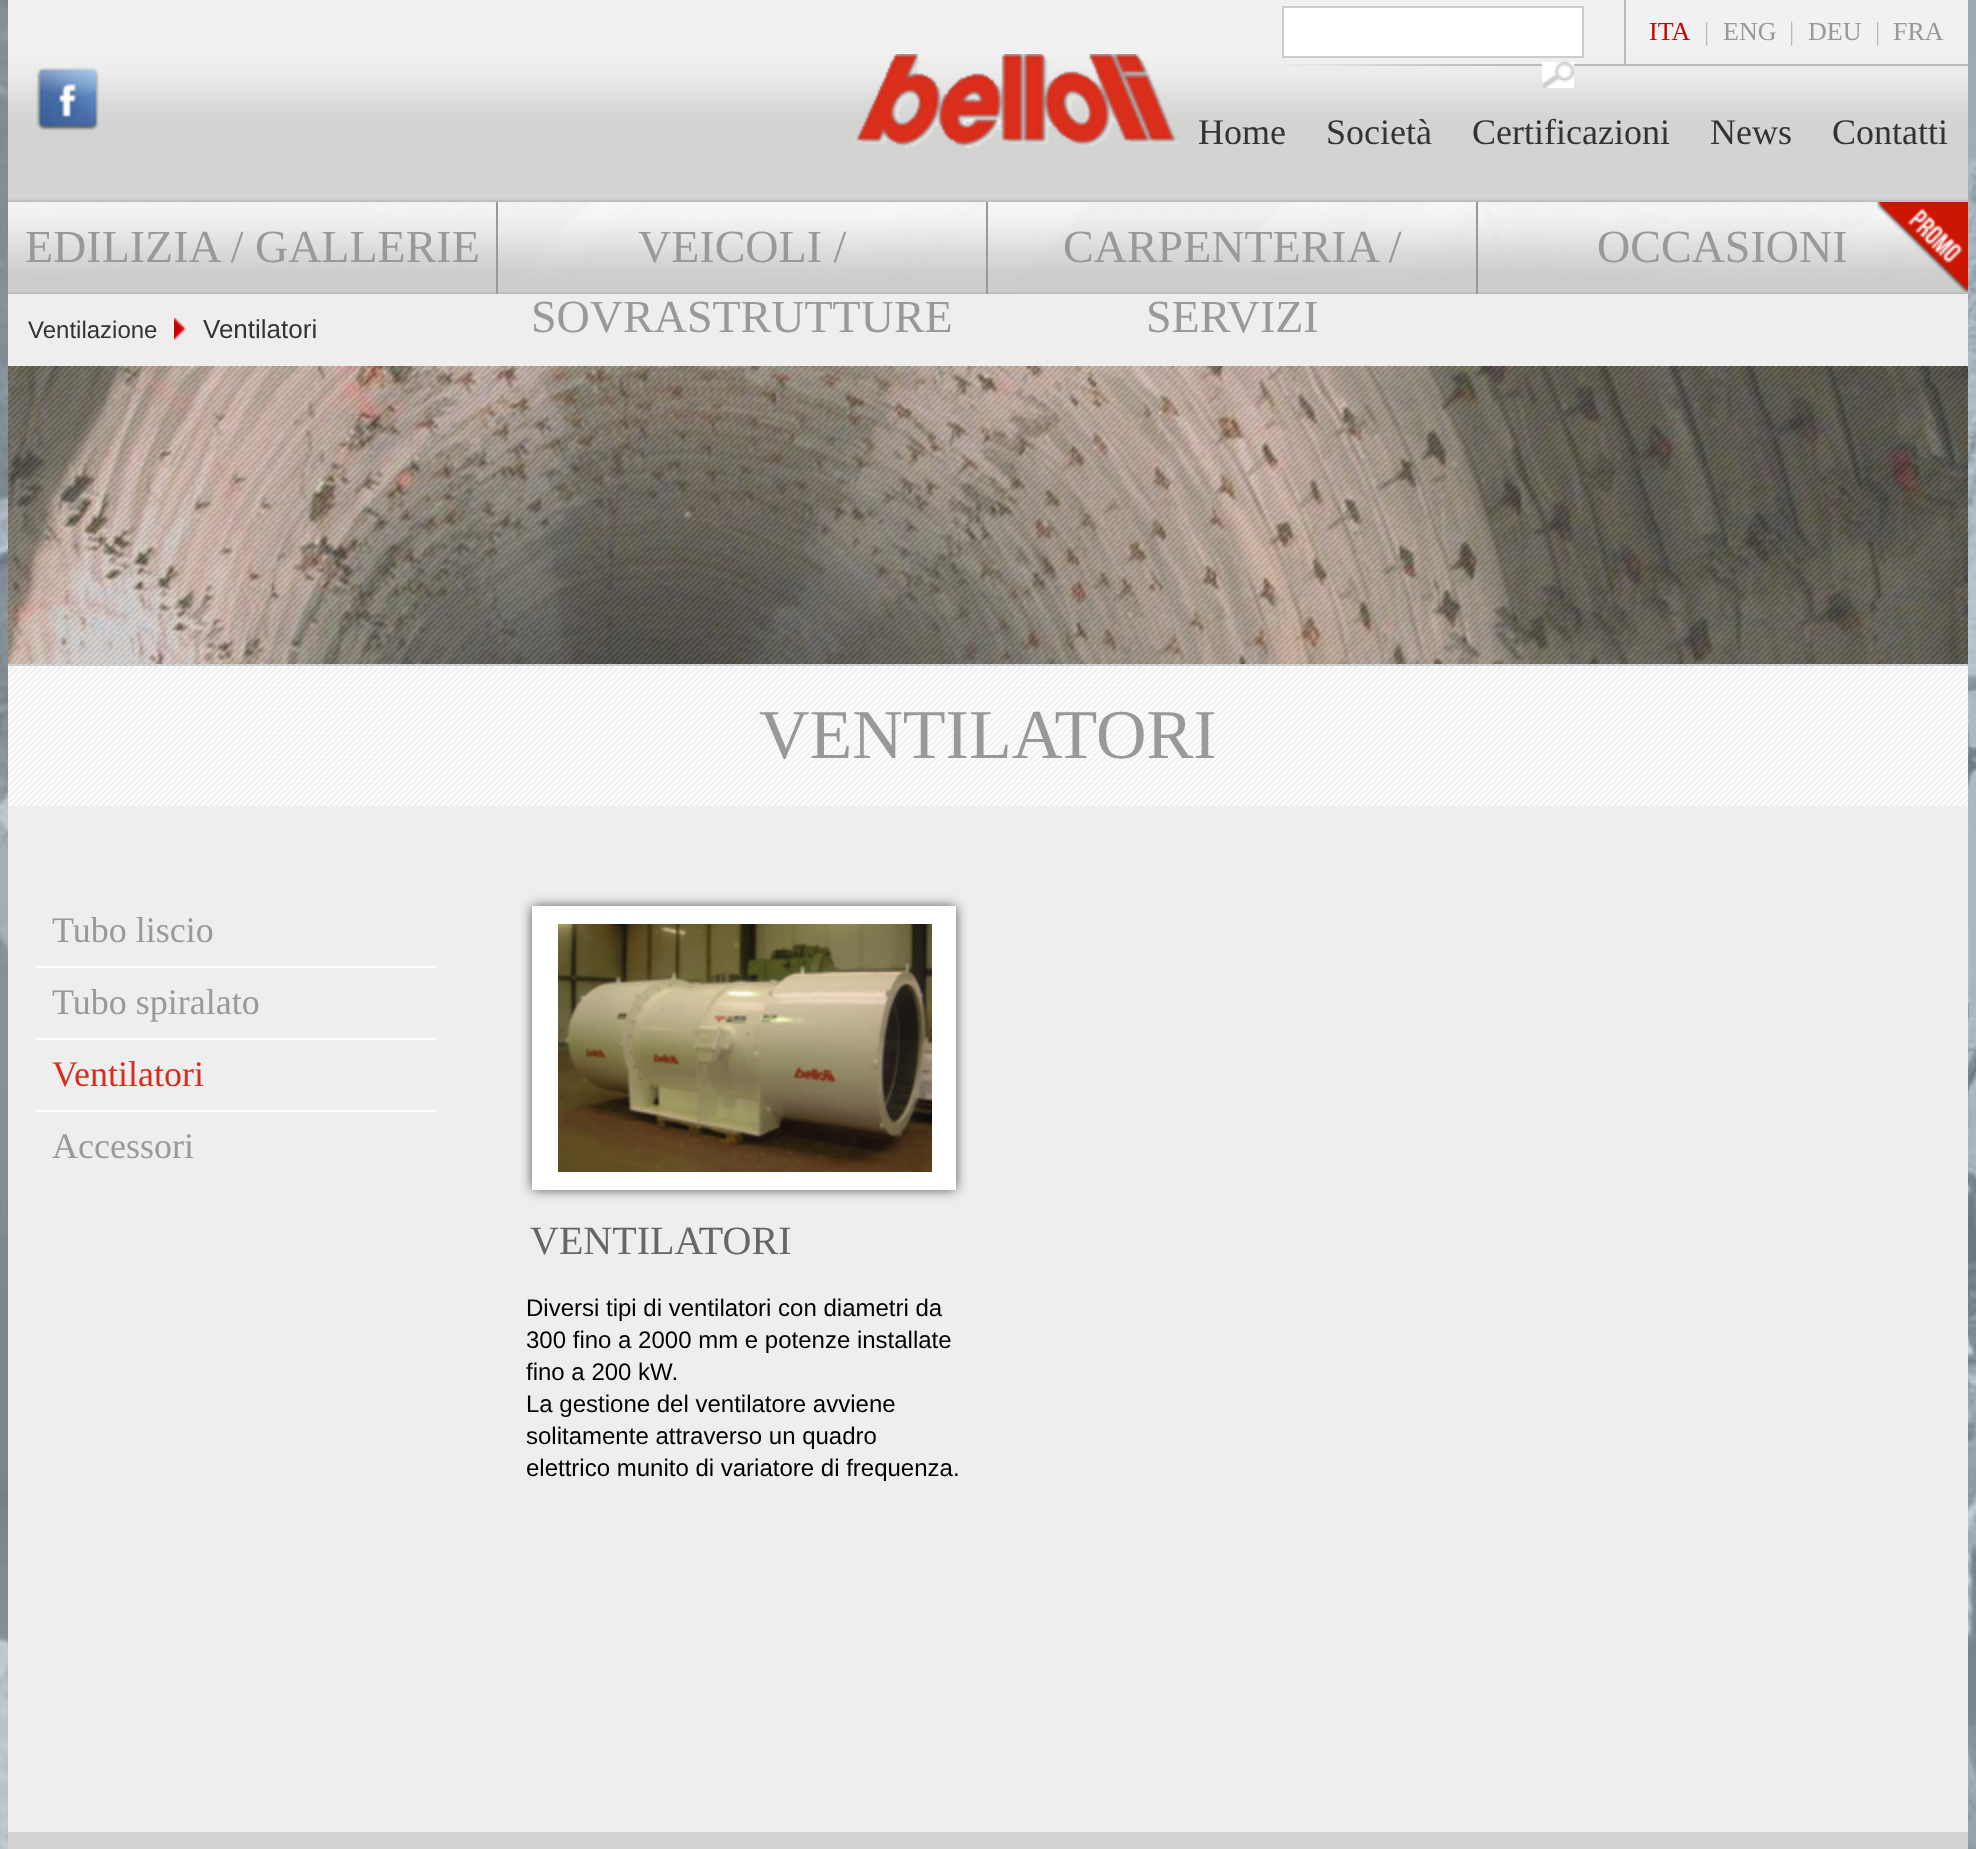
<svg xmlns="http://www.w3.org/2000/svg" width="1976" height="1849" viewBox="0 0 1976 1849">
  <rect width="100%" height="100%" fill="rgb(255,255,255)"/>
  <image x="0" y="0" width="1976" height="1849" href="pic1.png"/>
  <image x="8" y="0" width="1960" height="202" href="pic2.png"/>
  <image x="1285" y="64" width="339" height="2" href="pic3.png"/>
  <rect x="1283" y="7" width="300" height="50" fill="rgb(255,255,255)" stroke="rgb(204,204,204)" stroke-width="2"/>
  <image x="1542" y="62" width="32" height="26" href="pic4.png"/>
  <rect x="1624" y="64" width="344" height="2" fill="rgb(187,187,187)"/>
  <rect x="1624" y="0" width="2" height="66" fill="rgb(187,187,187)"/>
  <text x="1649" y="40" font-family="Liberation Serif" font-size="26" fill="rgb(204,0,0)">ITA</text>
  <text x="1704" y="40" font-family="Liberation Serif" font-size="26" fill="rgb(187,187,187)">|</text>
  <text x="1723" y="40" font-family="Liberation Serif" font-size="26" fill="rgb(153,153,153)">ENG</text>
  <text x="1789" y="40" font-family="Liberation Serif" font-size="26" fill="rgb(187,187,187)">|</text>
  <text x="1808" y="40" font-family="Liberation Serif" font-size="26" fill="rgb(153,153,153)">DEU</text>
  <text x="1875" y="40" font-family="Liberation Serif" font-size="26" fill="rgb(187,187,187)">|</text>
  <text x="1893" y="40" font-family="Liberation Serif" font-size="26" fill="rgb(153,153,153)">FRA</text>
  <image x="36" y="67" width="63" height="63" href="pic5.png"/>
  <image x="854" y="54" width="325" height="94" href="pic6.png"/>
  <g font-family="Liberation Serif" font-size="36" fill="rgb(51,51,51)">
    <text x="1198" y="144">Home</text>
    <text x="1326" y="144">Società</text>
    <text x="1472" y="144">Certificazioni</text>
    <text x="1710" y="144">News</text>
    <text x="1832" y="144">Contatti</text>
  </g>
  <image x="8" y="202" width="1960" height="92" href="pic7.png"/>
  <text x="25" y="262" font-family="Liberation Serif" font-size="46" fill="rgb(153,153,153)">EDILIZIA / GALLERIE</text>
  <rect x="496" y="202" width="2" height="92" fill="rgb(153,153,153)"/>
  <text x="638" y="262" font-family="Liberation Serif" font-size="46" fill="rgb(153,153,153)">VEICOLI /</text>
  <rect x="8" y="294" width="1960" height="72" fill="rgb(238,238,238)"/>
  <text x="531" y="332" font-family="Liberation Serif" font-size="46" fill="rgb(153,153,153)">SOVRASTRUTTURE</text>
  <rect x="986" y="202" width="2" height="92" fill="rgb(153,153,153)"/>
  <g font-family="Liberation Serif" font-size="46" fill="rgb(153,153,153)">
    <text x="1063" y="262">CARPENTERIA /</text>
    <text x="1146" y="332">SERVIZI</text>
  </g>
  <rect x="1476" y="202" width="2" height="92" fill="rgb(153,153,153)"/>
  <text x="1597" y="262" font-family="Liberation Serif" font-size="46" fill="rgb(153,153,153)">OCCASIONI</text>
  <image x="1876" y="202" width="92" height="90" href="pic8.png"/>
  <text x="28" y="338" font-family="Liberation Sans" font-size="24" fill="rgb(51,51,51)">Ventilazione</text>
  <image x="174" y="318" width="12" height="22" href="pic9.png"/>
  <text x="203" y="338" font-family="Liberation Sans" font-size="26" fill="rgb(51,51,51)">Ventilatori</text>
  <rect x="8" y="664" width="1960" height="1168" fill="rgb(238,238,238)"/>
  <image x="8" y="366" width="1960" height="298" href="pic10.png"/>
  <image x="8" y="366" width="1960" height="300" href="pic11.png"/>
  <image x="8" y="666" width="1960" height="140" href="pic12.png"/>
  <text x="759" y="758" font-family="Liberation Serif" font-size="70" fill="rgb(153,153,153)">VENTILATORI</text>
  <text x="52" y="942" font-family="Liberation Serif" font-size="36" fill="rgb(153,153,153)">Tubo liscio</text>
  <rect x="36" y="966" width="400" height="2" fill="rgb(254,254,254)"/>
  <text x="52" y="1014" font-family="Liberation Serif" font-size="36" fill="rgb(153,153,153)">Tubo spiralato</text>
  <rect x="36" y="1038" width="400" height="2" fill="rgb(254,254,254)"/>
  <text x="52" y="1086" font-family="Liberation Serif" font-size="36" fill="rgb(212,47,28)">Ventilatori</text>
  <rect x="36" y="1110" width="400" height="2" fill="rgb(254,254,254)"/>
  <text x="52" y="1158" font-family="Liberation Serif" font-size="36" fill="rgb(153,153,153)">Accessori</text>
  <rect x="532" y="906" width="424" height="284" fill="rgb(85,85,85)" filter="blur(6px)"/>
  <rect x="532" y="906" width="424" height="284" fill="rgb(255,255,255)"/>
  <image x="558" y="924" width="374" height="248" href="pic13.png"/>
  <text x="530" y="1254" font-family="Liberation Serif" font-size="40" fill="rgb(102,102,102)">VENTILATORI</text>
  <g font-family="Liberation Sans" font-size="24" fill="rgb(0,0,0)">
    <text>
      <tspan x="526" y="1316">Diversi tipi di ventilatori con diametri da</tspan>
      <tspan x="526" y="1348">300 fino a 2000 mm e potenze installate</tspan>
      <tspan x="526" y="1380">fino a 200 kW.</tspan>
      <tspan x="526" y="1412">La gestione del ventilatore avviene</tspan>
      <tspan x="526" y="1444">solitamente attraverso un quadro</tspan>
      <tspan x="526" y="1476">elettrico munito di variatore di frequenza.</tspan>
    </text>
  </g>
  <rect x="8" y="1832" width="1960" height="17" fill="rgb(211,211,209)"/>
</svg>
